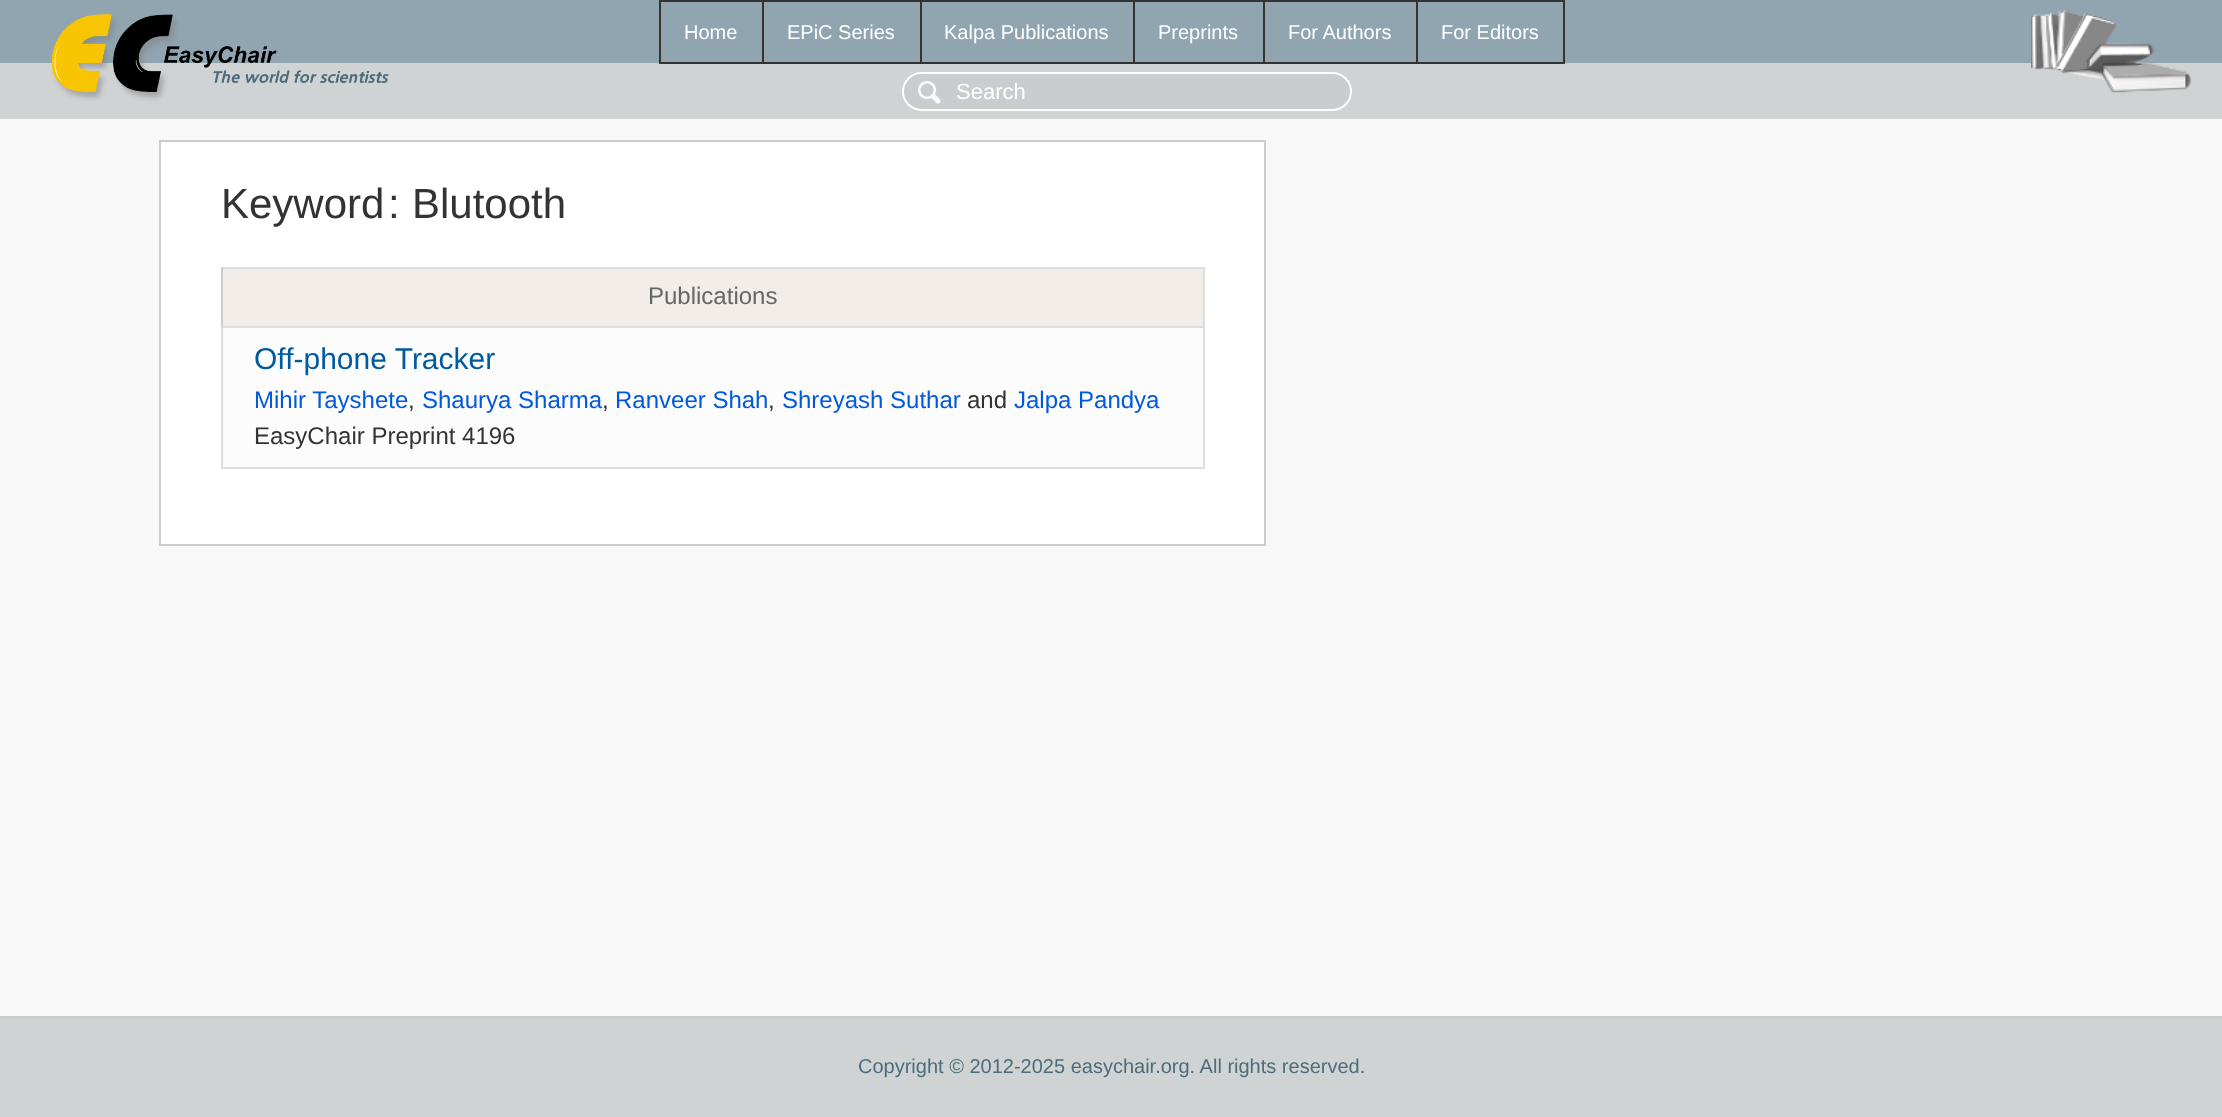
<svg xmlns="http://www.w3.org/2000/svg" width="2222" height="1117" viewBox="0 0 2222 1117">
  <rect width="100%" height="100%" fill="rgb(144,165,176)"/>
  <rect x="0" y="63" width="2222" height="56" fill="rgb(208,211,212)"/>
  <image x="51" y="14" width="338" height="87" href="pic1.png"/>
  <rect x="1416" y="0" width="149" height="2" fill="rgb(51,51,51)"/>
  <rect x="1563" y="0" width="2" height="63" fill="rgb(51,51,51)"/>
  <rect x="1416" y="62" width="149" height="2" fill="rgb(51,51,51)"/>
  <rect x="1416" y="0" width="2" height="63" fill="rgb(51,51,51)"/>
  <rect x="1263" y="0" width="155" height="2" fill="rgb(51,51,51)"/>
  <rect x="1263" y="62" width="155" height="2" fill="rgb(51,51,51)"/>
  <rect x="1263" y="0" width="2" height="63" fill="rgb(51,51,51)"/>
  <rect x="1133" y="0" width="132" height="2" fill="rgb(51,51,51)"/>
  <rect x="1133" y="62" width="132" height="2" fill="rgb(51,51,51)"/>
  <rect x="1133" y="0" width="2" height="63" fill="rgb(51,51,51)"/>
  <rect x="920" y="0" width="214" height="2" fill="rgb(51,51,51)"/>
  <rect x="920" y="62" width="214" height="2" fill="rgb(51,51,51)"/>
  <rect x="920" y="0" width="2" height="63" fill="rgb(51,51,51)"/>
  <rect x="762" y="0" width="159" height="2" fill="rgb(51,51,51)"/>
  <rect x="762" y="62" width="159" height="2" fill="rgb(51,51,51)"/>
  <rect x="762" y="0" width="2" height="63" fill="rgb(51,51,51)"/>
  <rect x="659" y="0" width="105" height="2" fill="rgb(51,51,51)"/>
  <rect x="659" y="62" width="105" height="2" fill="rgb(51,51,51)"/>
  <rect x="659" y="0" width="2" height="63" fill="rgb(51,51,51)"/>
  <g font-family="Liberation Sans" font-size="20" fill="rgb(255,255,255)">
    <text x="684" y="39">Home</text>
    <text x="787" y="39">EPiC Series</text>
    <text x="944" y="39">Kalpa Publications</text>
    <text x="1158" y="39">Preprints</text>
    <text x="1288" y="39">For Authors</text>
    <text x="1441" y="39">For Editors</text>
  </g>
  <image x="2031" y="10" width="160" height="83" href="pic2.png"/>
  <rect x="902" y="72" width="450" height="39" rx="19.5" fill="rgb(201,205,208)"/>
  <image x="918" y="81" width="23" height="23" href="pic3.png"/>
  <rect x="903" y="73" width="448" height="37" rx="18.5" fill="none" stroke="rgb(255,255,255)" stroke-width="2"/>
  <text x="956" y="99" font-family="Liberation Sans" font-size="22" fill="rgb(255,255,255)">Search</text>
  <rect x="0" y="119" width="2222" height="897" fill="rgb(248,248,248)"/>
  <rect x="160" y="141" width="1105" height="404" fill="rgb(255,255,255)" stroke="rgb(204,204,204)" stroke-width="2"/>
  <g font-family="Liberation Sans" font-size="42" fill="rgb(51,51,51)">
    <text x="221" y="218">Keyword</text>
    <text x="388" y="218">:</text>
    <text x="412" y="218">Blutooth</text>
  </g>
  <rect x="221" y="267" width="984" height="2" fill="rgb(222,222,222)"/>
  <rect x="1203" y="267" width="2" height="201" fill="rgb(222,222,222)"/>
  <rect x="221" y="467" width="984" height="2" fill="rgb(222,222,222)"/>
  <rect x="221" y="328" width="2" height="140" fill="rgb(222,222,222)"/>
  <rect x="223" y="269" width="980" height="57" fill="rgb(242,237,233)"/>
  <rect x="221" y="326" width="984" height="2" fill="rgb(222,222,222)"/>
  <rect x="221" y="267" width="2" height="60" fill="rgb(204,204,204)"/>
  <text x="648" y="304" font-family="Liberation Sans" font-size="24" fill="rgb(102,102,102)">Publications</text>
  <rect x="223" y="328" width="980" height="139" fill="rgb(252,252,252)"/>
  <text x="254" y="369" font-family="Liberation Sans" font-size="30" fill="rgb(0,90,159)">Off-phone Tracker</text>
  <text x="254" y="408" font-family="Liberation Sans" font-size="24" fill="rgb(0,89,219)">Mihir Tayshete</text>
  <text x="408" y="408" font-family="Liberation Sans" font-size="24" fill="rgb(51,51,51)">,</text>
  <text x="422" y="408" font-family="Liberation Sans" font-size="24" fill="rgb(0,89,219)">Shaurya Sharma</text>
  <text x="602" y="408" font-family="Liberation Sans" font-size="24" fill="rgb(51,51,51)">,</text>
  <text x="615" y="408" font-family="Liberation Sans" font-size="24" fill="rgb(0,89,219)">Ranveer Shah</text>
  <text x="768" y="408" font-family="Liberation Sans" font-size="24" fill="rgb(51,51,51)">,</text>
  <text x="782" y="408" font-family="Liberation Sans" font-size="24" fill="rgb(0,89,219)">Shreyash Suthar</text>
  <text x="967" y="408" font-family="Liberation Sans" font-size="24" fill="rgb(51,51,51)">and</text>
  <text x="1014" y="408" font-family="Liberation Sans" font-size="24" fill="rgb(0,89,219)">Jalpa Pandya</text>
  <text x="254" y="444" font-family="Liberation Sans" font-size="24" fill="rgb(51,51,51)">EasyChair Preprint 4196</text>
  <rect x="0" y="1018" width="2222" height="99" fill="rgb(208,211,212)"/>
  <rect x="0" y="1016" width="2222" height="2" fill="rgb(204,204,204)"/>
  <text x="858" y="1073" font-family="Liberation Sans" font-size="20" fill="rgb(76,108,124)">Copyright © 2012-2025 easychair.org. All rights reserved.</text>
</svg>
